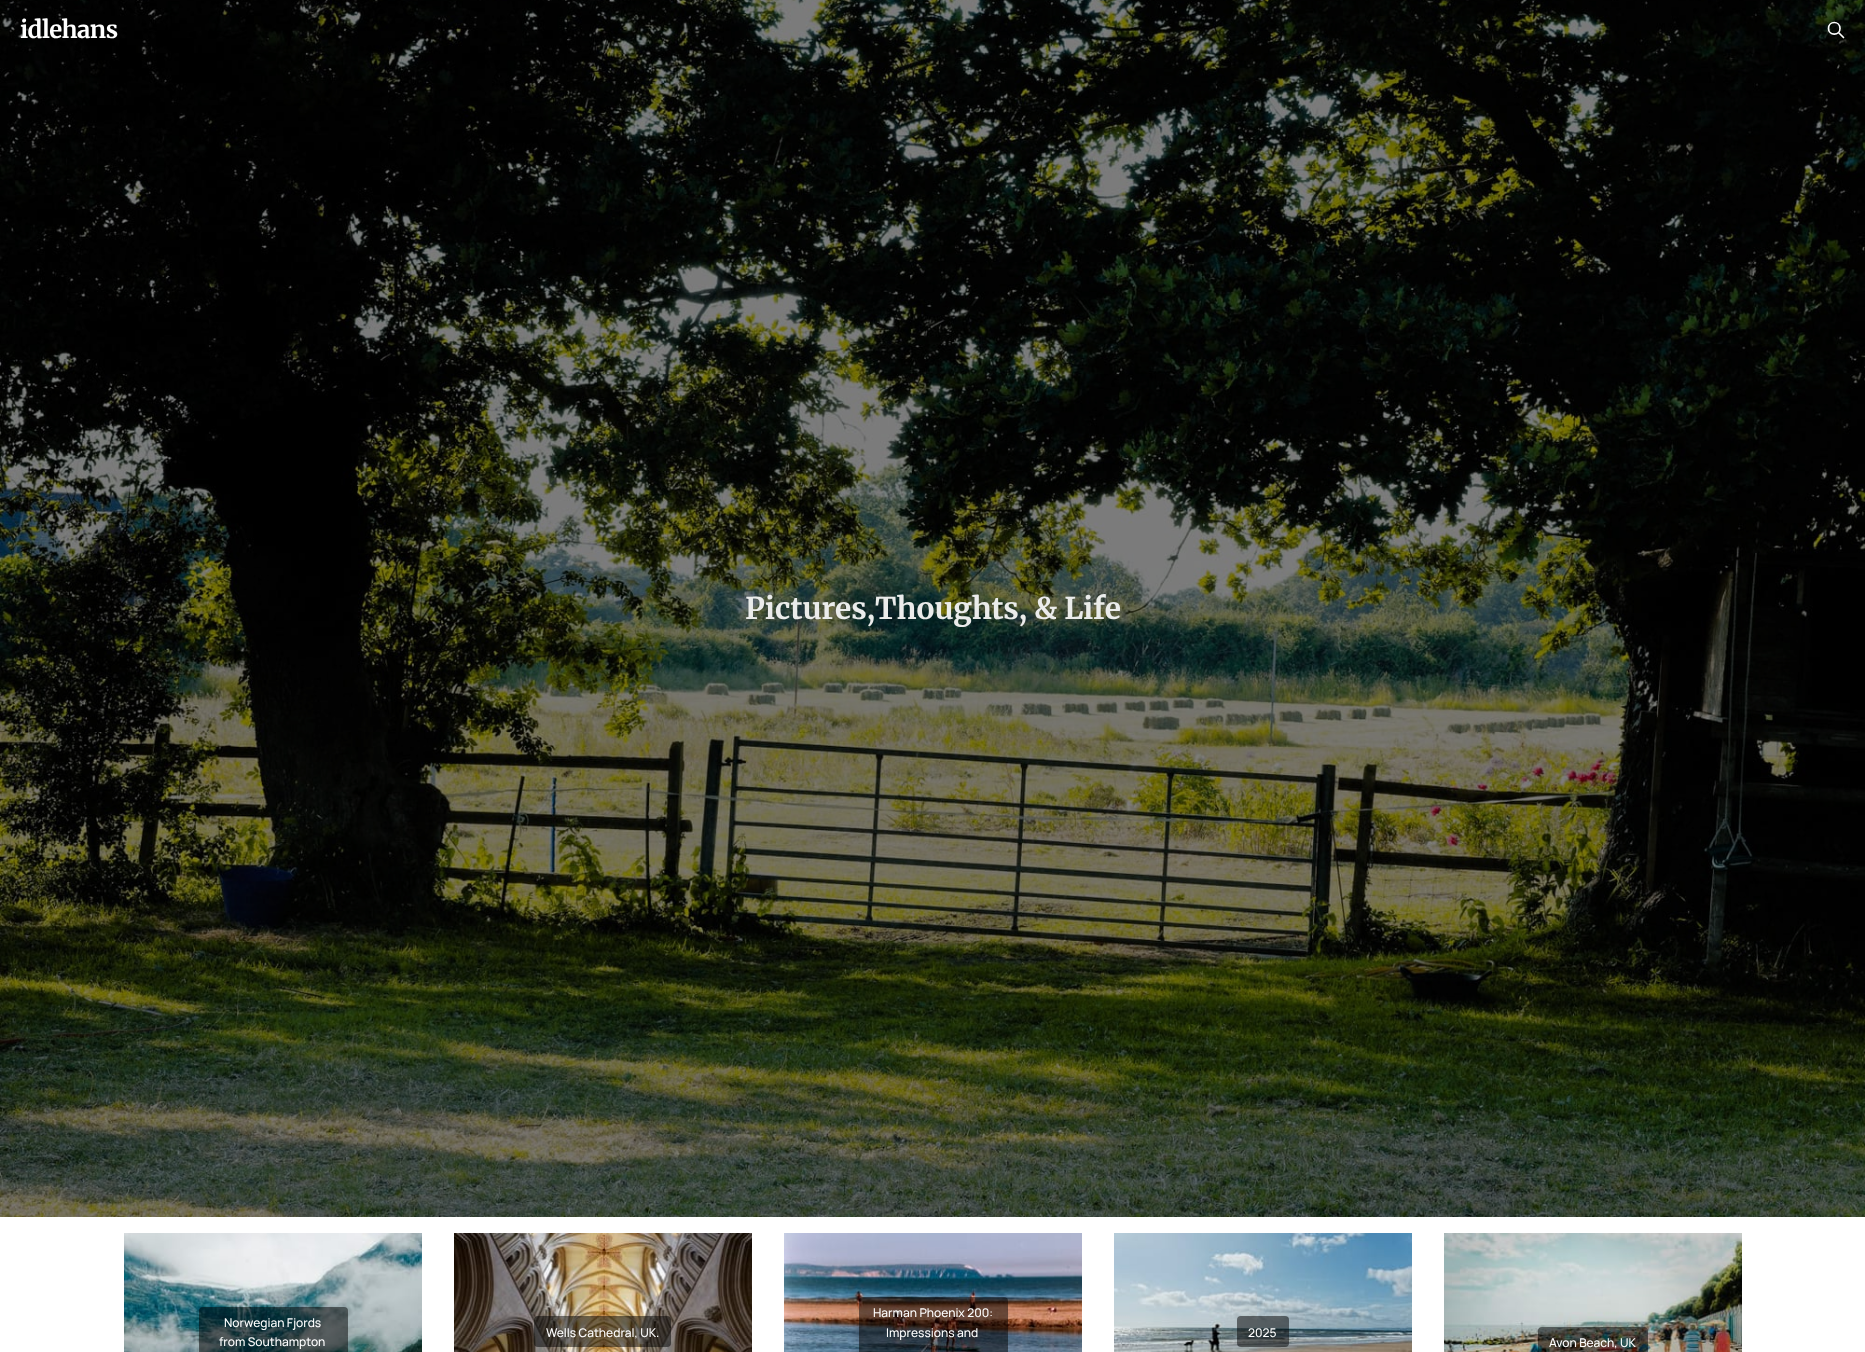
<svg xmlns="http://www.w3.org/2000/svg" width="1865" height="1352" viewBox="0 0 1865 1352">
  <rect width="100%" height="100%" fill="rgb(255,255,255)"/>
  <image x="0" y="0" width="1865" height="1217" href="pic1.png"/>
  <text x="20" y="38" font-family="Merriweather" font-size="24" font-weight="300" letter-spacing="-0.5" fill="rgb(255,255,255)">idlehans</text>
  <path d="M1843.5 37.5L1838.5 32.5M1840 28.5C1840 36 1828.5 36 1828.5 28.5C1828.5 20.5 1840 20.5 1840 28.5Z" fill="none" stroke="rgb(255,255,255)" stroke-width="1.7" stroke-linecap="round" stroke-linejoin="round"/>
  <text x="745" y="619" font-family="Merriweather" font-size="30" font-weight="300" fill="rgb(235,236,235)">Pictures,Thoughts, &amp; Life</text>
  <image x="124" y="1233" width="298" height="119" href="pic2.png"/>
  <rect x="199" y="1307" width="149" height="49" rx="4" fill="rgba(0,0,0,0.5)"/>
  <g font-family="Manrope" font-size="12" font-weight="200" fill="rgb(255,255,255)">
    <text x="224" y="1327">Norwegian Fjords</text>
    <text x="219" y="1346">from Southampton</text>
  </g>
  <image x="454" y="1233" width="298" height="119" href="pic3.png"/>
  <rect x="534" y="1316" width="137" height="31" rx="4" fill="rgba(0,0,0,0.5)"/>
  <text x="546" y="1337" font-family="Manrope" font-size="12" font-weight="200" fill="rgb(255,255,255)">Wells Cathedral, UK.</text>
  <image x="784" y="1233" width="298" height="119" href="pic4.png"/>
  <rect x="859" y="1297" width="149" height="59" rx="4" fill="rgba(0,0,0,0.5)"/>
  <g font-family="Manrope" font-size="12" font-weight="200" fill="rgb(255,255,255)">
    <text x="873" y="1317">Harman Phoenix 200:</text>
    <text x="886" y="1337">Impressions and</text>
  </g>
  <image x="1114" y="1233" width="298" height="119" href="pic5.png"/>
  <rect x="1237" y="1316" width="52" height="31" rx="4" fill="rgba(0,0,0,0.5)"/>
  <text x="1248" y="1337" font-family="Manrope" font-size="12" font-weight="200" fill="rgb(255,255,255)">2025</text>
  <image x="1444" y="1233" width="298" height="119" href="pic6.png"/>
  <rect x="1538" y="1327" width="110" height="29" rx="4" fill="rgba(0,0,0,0.5)"/>
  <text x="1549" y="1347" font-family="Manrope" font-size="12" font-weight="200" fill="rgb(255,255,255)">Avon Beach, UK</text>
</svg>
